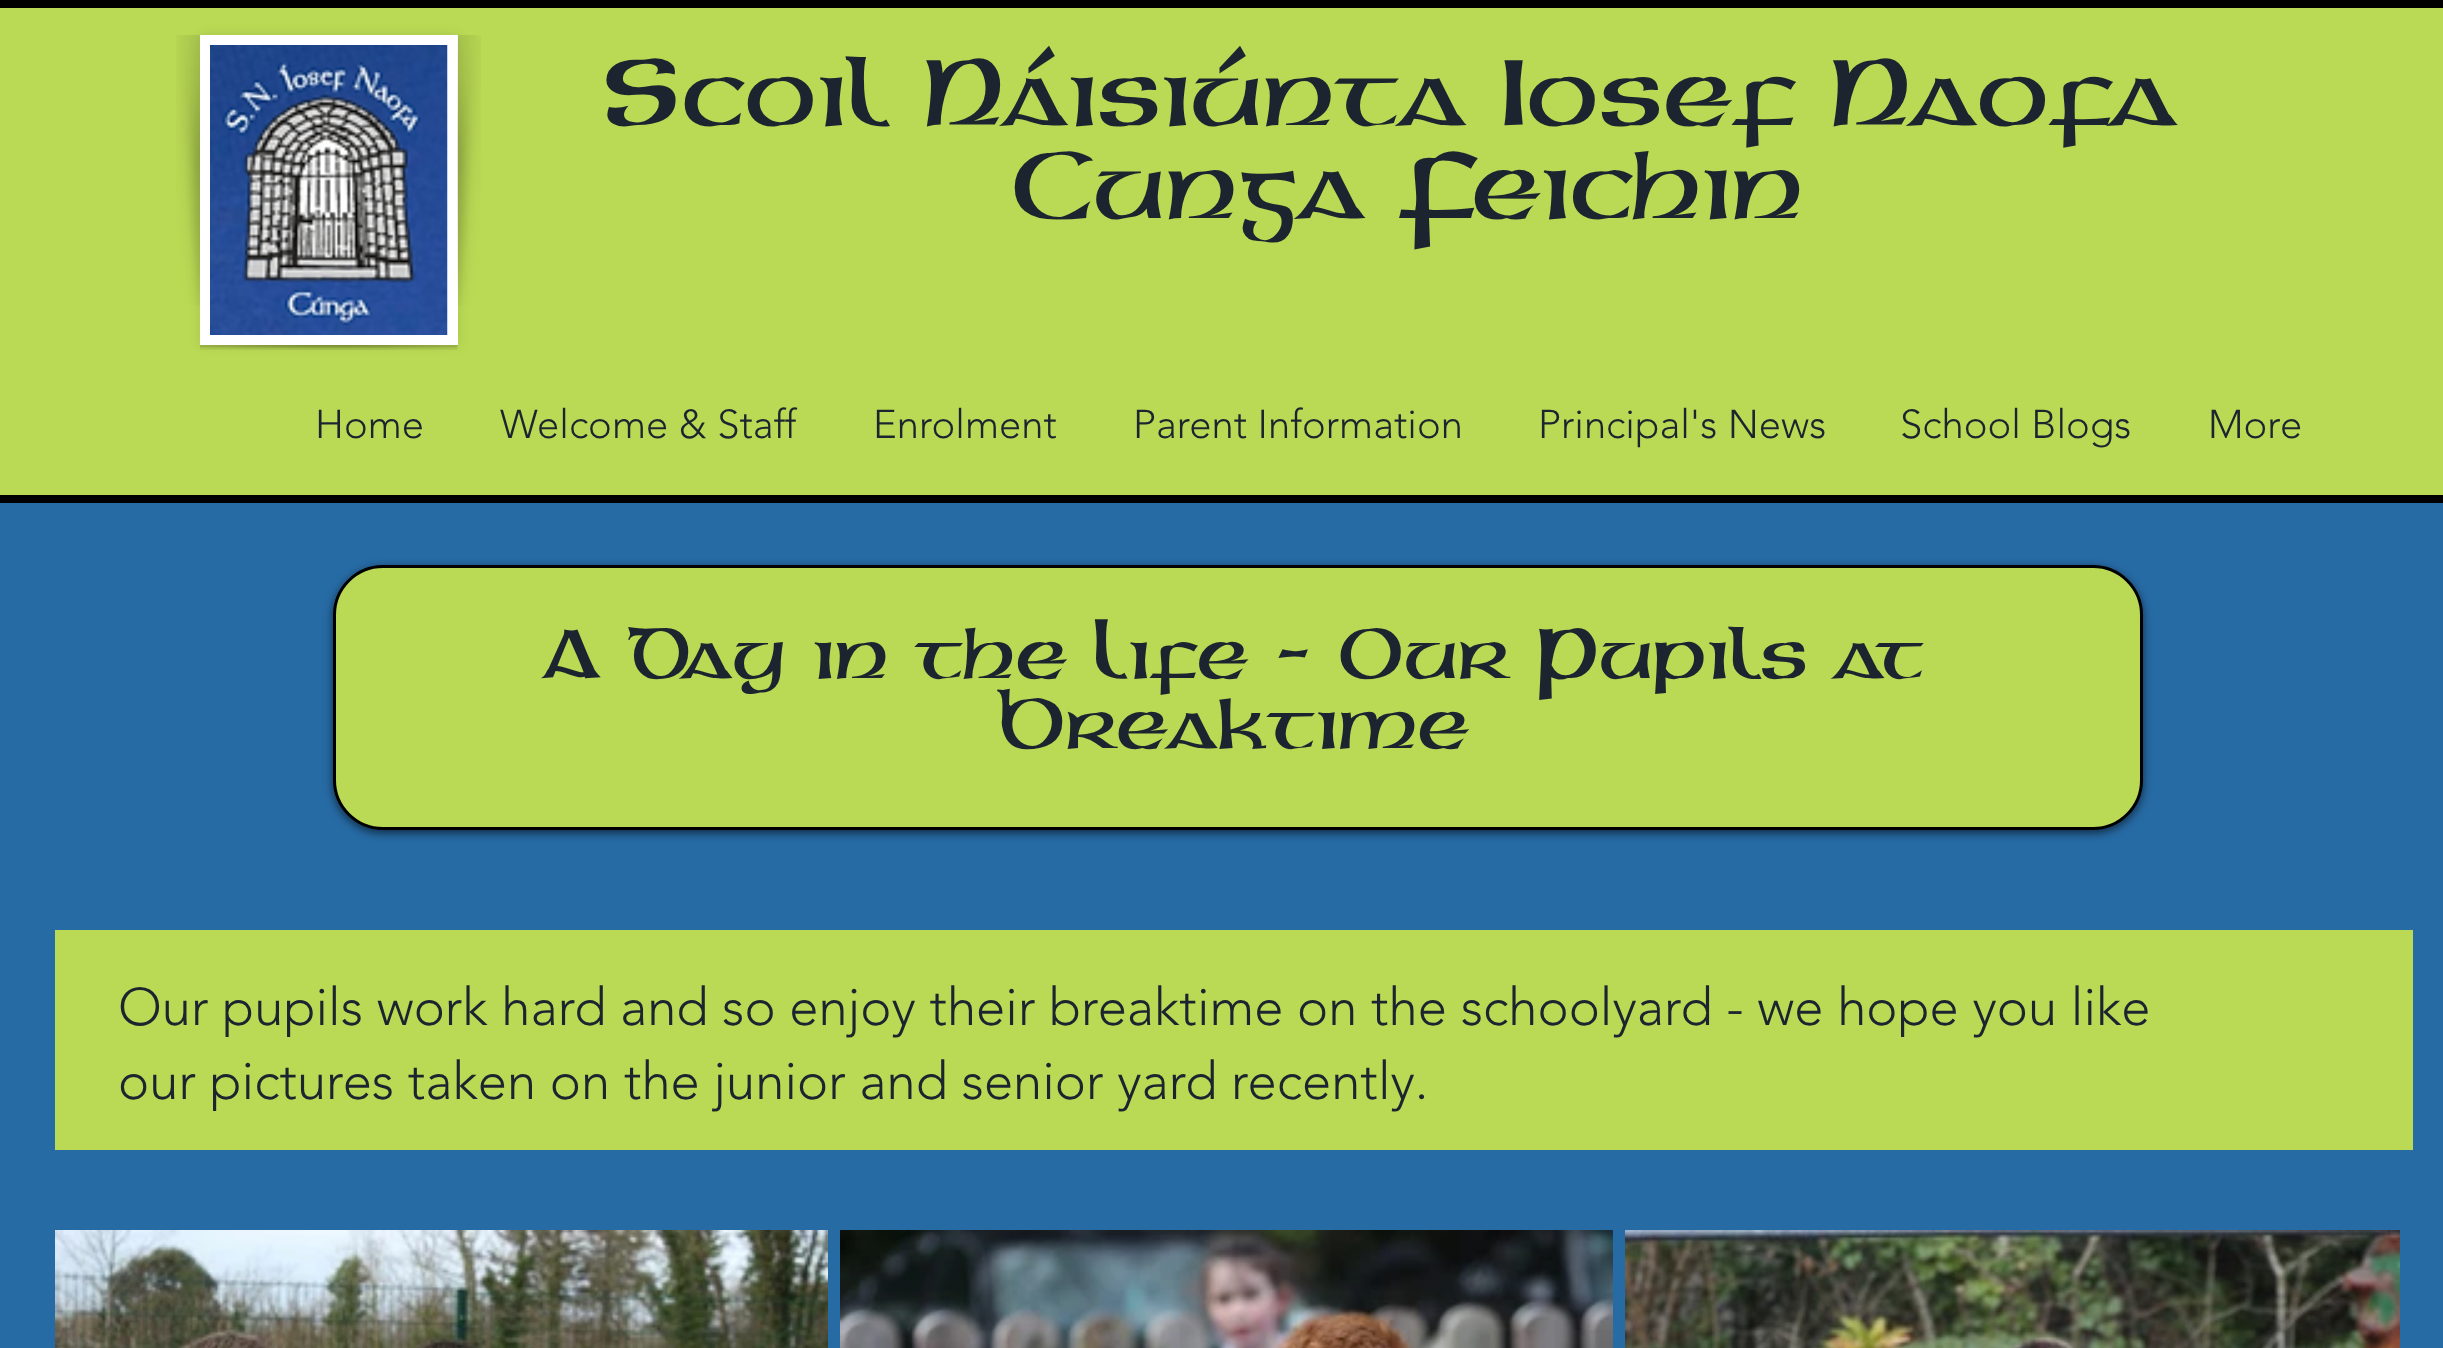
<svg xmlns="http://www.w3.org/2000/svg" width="2443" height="1348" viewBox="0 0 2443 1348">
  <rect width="100%" height="100%" fill="rgb(186,218,85)"/>
  <rect x="0" y="0" width="2443" height="8" fill="rgb(0,0,0)"/>
  <rect x="0" y="495" width="2443" height="8" fill="rgb(0,0,0)"/>
  <rect x="200" y="35" width="258" height="310" fill="rgba(0,0,0,0.1)" filter="blur(6px)"/>
  <rect x="200" y="35" width="258" height="310" fill="rgb(255,255,255)"/>
  <image x="210" y="45" width="238" height="290" href="pic1.png"/>
  <image x="200" y="345" width="258" height="5" href="pic2.png"/>
  <image x="176" y="35" width="24" height="271" href="pic3.png"/>
  <image x="457" y="35" width="24" height="271" href="pic4.png"/>
  <g font-family="'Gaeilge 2'" font-size="100" fill="rgb(28,36,47)">
    <text x="601" y="125">Scoil Náisiúnta Iosef Naofa</text>
    <text x="1011" y="218">Cunga Feichin</text>
  </g>
  <g font-family="'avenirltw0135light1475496'" font-size="40" font-weight="300" fill="rgb(28,36,47)">
    <text x="315" y="438">Home</text>
    <text x="500" y="438">Welcome &amp; Staff</text>
    <text x="873" y="438">Enrolment</text>
    <text x="1133" y="438">Parent Information</text>
    <text x="1538" y="438">Principal's News</text>
    <text x="1900" y="438">School Blogs</text>
    <text x="2208" y="438">More</text>
  </g>
  <rect x="0" y="503" width="2443" height="845" fill="rgb(39,107,165)"/>
  <rect x="333" y="568" width="1810" height="265" rx="50" fill="rgba(0,0,0,0.6)" filter="blur(5px)"/>
  <rect x="334.5" y="566.5" width="1807" height="262" rx="48.5" fill="rgb(186,218,85)" stroke="rgb(0,0,0)" stroke-width="3"/>
  <g font-family="'Gaeilge 2'" font-size="75" fill="rgb(28,36,47)">
    <text x="541" y="678">A Day in the Life - Our Pupils at</text>
    <text x="997" y="748">Breaktime</text>
  </g>
  <rect x="55" y="930" width="2358" height="220" fill="rgb(186,218,85)"/>
  <g font-family="'avenirltw0135light1475496'" font-size="52.5" font-weight="300" fill="rgb(28,36,47)">
    <text>
      <tspan x="118" y="1025">Our pupils work hard and so enjoy their breaktime on the schoolyard - we hope you like</tspan>
      <tspan x="118" y="1099">our pictures taken on the junior and senior yard recently.</tspan>
    </text>
  </g>
  <image x="55" y="1230" width="773" height="118" href="pic5.png"/>
  <image x="840" y="1230" width="773" height="118" href="pic6.png"/>
  <image x="1625" y="1230" width="775" height="118" href="pic7.png"/>
</svg>
